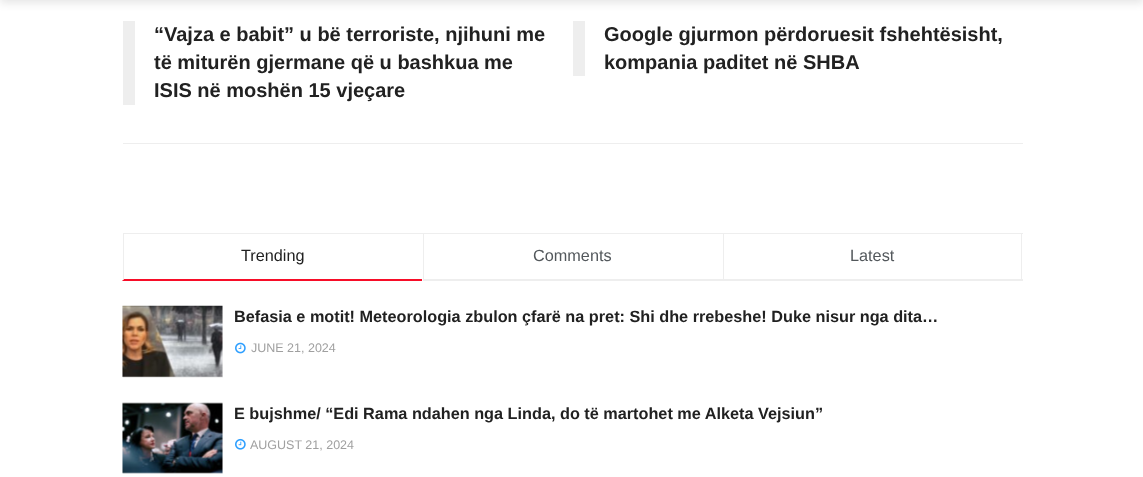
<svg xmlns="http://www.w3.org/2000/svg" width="1143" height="477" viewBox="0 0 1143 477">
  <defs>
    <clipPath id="clip1"><rect x="123" y="233" width="900" height="48"/></clipPath>
  </defs>
  <rect width="100%" height="100%" fill="rgb(255,255,255)"/>
  <rect x="0" y="-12" width="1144" height="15" fill="rgba(0,0,0,0.1)" filter="blur(4px)"/>
  <rect x="123" y="143" width="900" height="1" fill="rgb(238,238,238)"/>
  <rect x="123" y="21" width="12" height="84" fill="rgb(238,238,238)"/>
  <g font-family="Liberation Sans" font-size="20" font-weight="bold" fill="rgb(33,33,33)">
    <text>
      <tspan x="154" y="41">“Vajza e babit” u bë terroriste, njihuni me</tspan>
      <tspan x="154" y="69">të miturën gjermane që u bashkua me</tspan>
      <tspan x="154" y="97">ISIS në moshën 15 vjeçare</tspan>
    </text>
  </g>
  <rect x="573" y="21" width="12" height="55" fill="rgb(238,238,238)"/>
  <g font-family="Liberation Sans" font-size="20" font-weight="bold" fill="rgb(33,33,33)">
    <text>
      <tspan x="604" y="41">Google gjurmon përdoruesit fshehtësisht,</tspan>
      <tspan x="604" y="69">kompania paditet në SHBA</tspan>
    </text>
  </g>
  <rect x="123" y="233" width="900" height="1" fill="rgb(238,238,238)"/>
  <path d="M422 281H122L124 279H422Z" fill="rgb(247,13,40)"/>
  <g clip-path="url(#clip1)">
    <path d="M122 281V232L124 234V279Z" fill="rgb(238,238,238)"/>
  </g>
  <text x="241" y="261" font-family="Liberation Sans" font-size="16.25" fill="rgb(33,33,33)">Trending</text>
  <rect x="423" y="279" width="300" height="2" fill="rgb(238,238,238)"/>
  <rect x="423" y="233" width="1" height="48" fill="rgb(238,238,238)"/>
  <text x="533" y="261" font-family="Liberation Sans" font-size="16.25" fill="rgb(83,88,92)">Comments</text>
  <rect x="1021" y="233" width="1" height="48" fill="rgb(238,238,238)"/>
  <rect x="723" y="279" width="300" height="2" fill="rgb(238,238,238)"/>
  <rect x="723" y="233" width="1" height="48" fill="rgb(238,238,238)"/>
  <text x="850" y="261" font-family="Liberation Sans" font-size="16.25" fill="rgb(83,88,92)">Latest</text>
  <rect x="123" y="306" width="100" height="72" fill="rgb(247,247,247)"/>
  <rect x="122" y="306" width="3" height="71" fill="rgb(242,242,242)"/>
  <image x="122" y="305" width="101" height="73" href="pic1.png"/>
  <text x="234" y="322" font-family="Liberation Sans" font-size="16.25" font-weight="bold" fill="rgb(33,33,33)">Befasia e motit! Meteorologia zbulon çfarë na pret: Shi dhe rrebeshe! Duke nisur nga dita…</text>
  <image x="235" y="342" width="11" height="12" href="pic2.png"/>
  <text x="251" y="352" font-family="Liberation Sans" font-size="12.5" fill="rgb(160,160,160)">JUNE 21, 2024</text>
  <rect x="123" y="403" width="100" height="71" fill="rgb(247,247,247)"/>
  <image x="122" y="402" width="100" height="71" href="pic3.png"/>
  <image x="122" y="402" width="101" height="72" href="pic4.png"/>
  <text x="234" y="419" font-family="Liberation Sans" font-size="16.25" font-weight="bold" fill="rgb(33,33,33)">E bujshme/ “Edi Rama ndahen nga Linda, do të martohet me Alketa Vejsiun”</text>
  <image x="235" y="438" width="11" height="12" href="pic5.png"/>
  <text x="250" y="449" font-family="Liberation Sans" font-size="12.5" fill="rgb(160,160,160)">AUGUST 21, 2024</text>
</svg>
